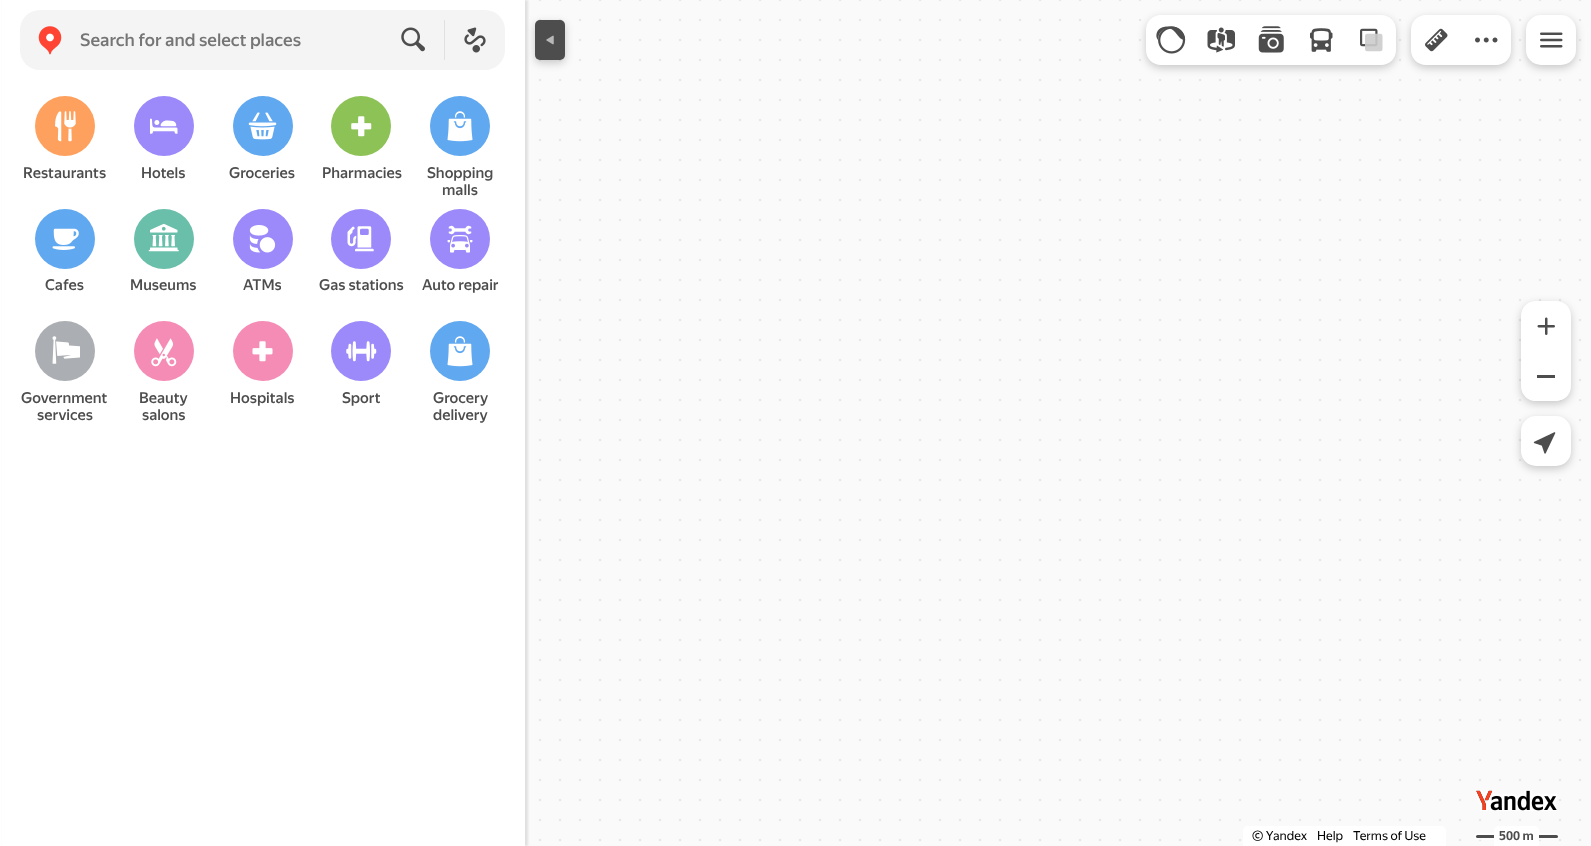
<svg xmlns="http://www.w3.org/2000/svg" width="1591" height="846" viewBox="0 0 1591 846">
  <defs>
    <clipPath id="clip1"><rect x="243" y="276" width="38" height="18"/></clipPath>
  </defs>
  <rect width="100%" height="100%" fill="rgb(255,255,255)"/>
  <image x="525" y="0" width="1066" height="846" href="pic1.png"/>
  <rect x="3" y="0" width="525" height="846" fill="rgba(0,0,0,0.1)" filter="blur(1px)"/>
  <rect x="535" y="23" width="30" height="40" rx="5" fill="rgba(0,0,0,0.2)" filter="blur(4px)"/>
  <rect x="2" y="0" width="523" height="846" fill="rgb(255,255,255)"/>
  <rect x="20" y="10" width="485" height="60" rx="20" fill="rgb(244,244,244)"/>
  <image x="38" y="26" width="24" height="29" href="pic2.png"/>
  <text x="80" y="46" font-family="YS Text" font-size="17.5" font-weight="500" fill="rgb(117,117,117)">Search for and select places</text>
  <image x="401" y="27" width="24" height="25" href="pic3.png"/>
  <rect x="444" y="20" width="1" height="40" fill="rgb(224,224,224)"/>
  <image x="464" y="27" width="22" height="26" href="pic4.png"/>
  <rect x="1146" y="18" width="250" height="50" rx="15" fill="rgba(0,0,0,0.2)" filter="blur(4px)"/>
  <path d="M1161 15H1196V65H1161C1152.5 65 1146 58.5 1146 50V30C1146 21.5 1152.5 15 1161 15Z" fill="rgb(255,255,255)"/>
  <image x="1156" y="26" width="30" height="28" href="pic5.png"/>
  <rect x="1196" y="15" width="150" height="50" fill="rgb(255,255,255)"/>
  <image x="1207" y="27" width="28" height="26" href="pic6.png"/>
  <path d="M1346 15H1381C1389.5 15 1396 21.5 1396 30V50C1396 58.5 1389.5 65 1381 65H1346Z" fill="rgb(255,255,255)"/>
  <image x="1360" y="28" width="23" height="24" href="pic7.png"/>
  <image x="1258" y="26" width="26" height="27" href="pic8.png"/>
  <image x="1310" y="28" width="23" height="24" href="pic9.png"/>
  <rect x="1411" y="18" width="100" height="50" rx="15" fill="rgba(0,0,0,0.2)" filter="blur(4px)"/>
  <path d="M1426 15H1461V65H1426C1417.5 65 1411 58.5 1411 50V30C1411 21.5 1417.5 15 1426 15Z" fill="rgb(255,255,255)"/>
  <image x="1425" y="28" width="23" height="24" href="pic10.png"/>
  <path d="M1461 15H1496C1504.5 15 1511 21.5 1511 30V50C1511 58.5 1504.5 65 1496 65H1461Z" fill="rgb(255,255,255)"/>
  <image x="1475" y="37" width="23" height="6" href="pic11.png"/>
  <rect x="1526" y="18" width="50" height="50" rx="15" fill="rgba(0,0,0,0.2)" filter="blur(4px)"/>
  <rect x="1526" y="15" width="50" height="50" rx="15" fill="rgb(255,255,255)"/>
  <image x="1540" y="32" width="23" height="16" href="pic12.png"/>
  <rect x="1521" y="304" width="50" height="100" rx="15" fill="rgba(0,0,0,0.2)" filter="blur(4px)"/>
  <path d="M1536 301H1556C1564.5 301 1571 307.5 1571 316V351H1521V316C1521 307.5 1527.5 301 1536 301Z" fill="rgb(255,255,255)"/>
  <image x="1537" y="317" width="18" height="18" href="pic13.png"/>
  <path d="M1521 351H1571V386C1571 394.5 1564.5 401 1556 401H1536C1527.5 401 1521 394.5 1521 386Z" fill="rgb(255,255,255)"/>
  <rect x="1537" y="375" width="18" height="3" fill="rgb(77,77,77)"/>
  <rect x="1521" y="419" width="50" height="50" rx="15" fill="rgba(0,0,0,0.2)" filter="blur(4px)"/>
  <rect x="1521" y="416" width="50" height="50" rx="15" fill="rgb(255,255,255)"/>
  <image x="1533" y="432" width="23" height="22" href="pic14.png"/>
  <rect x="535" y="20" width="30" height="40" rx="5" fill="rgb(77,77,77)"/>
  <image x="546" y="35" width="8" height="10" href="pic15.png"/>
  <circle cx="65" cy="126" r="30" fill="rgb(255,161,94)"/>
  <image x="55" y="111" width="21" height="31" href="pic16.png"/>
  <text x="23" y="178" font-family="YS Text" font-size="15" font-weight="500" fill="rgb(77,77,77)">Restaurants</text>
  <circle cx="164" cy="126" r="30" fill="rgb(156,137,250)"/>
  <image x="150" y="118" width="28" height="16" href="pic17.png"/>
  <text x="141" y="178" font-family="YS Text" font-size="15" font-weight="500" fill="rgb(77,77,77)">Hotels</text>
  <circle cx="263" cy="126" r="30" fill="rgb(96,168,240)"/>
  <image x="248" y="112" width="29" height="28" href="pic18.png"/>
  <text x="229" y="178" font-family="YS Text" font-size="15" font-weight="500" fill="rgb(77,77,77)">Groceries</text>
  <circle cx="361" cy="126" r="30" fill="rgb(141,194,87)"/>
  <image x="351" y="116" width="21" height="21" href="pic19.png"/>
  <text x="322" y="178" font-family="YS Text" font-size="15" font-weight="500" fill="rgb(77,77,77)">Pharmacies</text>
  <circle cx="460" cy="126" r="30" fill="rgb(96,168,240)"/>
  <image x="447" y="111" width="26" height="31" href="pic20.png"/>
  <g font-family="YS Text" font-size="15" font-weight="500" fill="rgb(77,77,77)">
    <text x="427" y="178">Shopping</text>
    <text x="442" y="195">malls</text>
  </g>
  <circle cx="65" cy="239" r="30" fill="rgb(96,168,240)"/>
  <image x="52" y="228" width="27" height="22" href="pic21.png"/>
  <text x="45" y="290" font-family="YS Text" font-size="15" font-weight="500" fill="rgb(77,77,77)">Cafes</text>
  <circle cx="164" cy="239" r="30" fill="rgb(105,191,170)"/>
  <image x="148" y="223" width="31" height="29" href="pic22.png"/>
  <text x="130" y="290" font-family="YS Text" font-size="15" font-weight="500" fill="rgb(77,77,77)">Museums</text>
  <circle cx="263" cy="239" r="30" fill="rgb(156,137,250)"/>
  <image x="249" y="225" width="27" height="28" href="pic23.png"/>
  <g clip-path="url(#clip1)">
    <text x="243" y="290" font-family="YS Text" font-size="15" font-weight="500" fill="rgb(77,77,77)">ATMs</text>
  </g>
  <circle cx="361" cy="239" r="30" fill="rgb(156,137,250)"/>
  <image x="347" y="226" width="27" height="26" href="pic24.png"/>
  <text x="319" y="290" font-family="YS Text" font-size="15" font-weight="500" fill="rgb(77,77,77)">Gas stations</text>
  <circle cx="460" cy="239" r="30" fill="rgb(156,137,250)"/>
  <image x="447" y="225" width="26" height="28" href="pic25.png"/>
  <text x="422" y="290" font-family="YS Text" font-size="15" font-weight="500" fill="rgb(77,77,77)">Auto repair</text>
  <circle cx="65" cy="351" r="30" fill="rgb(171,174,178)"/>
  <image x="52" y="336" width="28" height="28" href="pic26.png"/>
  <g font-family="YS Text" font-size="15" font-weight="500" fill="rgb(77,77,77)">
    <text x="21" y="403">Government</text>
    <text x="37" y="420">services</text>
  </g>
  <circle cx="164" cy="351" r="30" fill="rgb(245,140,182)"/>
  <image x="151" y="338" width="26" height="29" href="pic27.png"/>
  <g font-family="YS Text" font-size="15" font-weight="500" fill="rgb(77,77,77)">
    <text x="139" y="403">Beauty</text>
    <text x="142" y="420">salons</text>
  </g>
  <circle cx="263" cy="351" r="30" fill="rgb(245,140,182)"/>
  <image x="252" y="341" width="21" height="21" href="pic28.png"/>
  <text x="230" y="403" font-family="YS Text" font-size="15" font-weight="500" fill="rgb(77,77,77)">Hospitals</text>
  <circle cx="361" cy="351" r="30" fill="rgb(156,137,250)"/>
  <image x="346" y="341" width="31" height="21" href="pic29.png"/>
  <text x="342" y="403" font-family="YS Text" font-size="15" font-weight="500" fill="rgb(77,77,77)">Sport</text>
  <circle cx="460" cy="351" r="30" fill="rgb(96,168,240)"/>
  <image x="447" y="336" width="26" height="31" href="pic20.png"/>
  <g font-family="YS Text" font-size="15" font-weight="500" fill="rgb(77,77,77)">
    <text>
      <tspan x="433" y="403">Grocery</tspan>
      <tspan x="433" y="420">delivery</tspan>
    </text>
  </g>
  <image x="1476" y="790" width="81" height="21" href="pic30.png"/>
  <path d="M1248 826H1441C1444 826 1446 828 1446 831V846H1243V831C1243 828 1245 826 1248 826Z" fill="rgb(255,255,255)"/>
  <g font-family="YS Text" font-size="12.5" fill="rgb(0,0,0)">
    <text x="1252" y="840">© Yandex</text>
    <text x="1317" y="840">Help</text>
    <text x="1353" y="840">Terms of Use</text>
  </g>
  <rect x="1474" y="833" width="86" height="7" rx="3.5" fill="rgba(255,255,255,0.6)"/>
  <rect x="1476" y="835" width="82" height="3" rx="1.5" fill="rgb(77,77,77)"/>
  <path d="M1499 826H1534C1537 826 1539 828 1539 831V846H1494V831C1494 828 1496 826 1499 826Z" fill="rgb(255,255,255)"/>
  <text x="1499" y="840" font-family="YS Text" font-size="12.5" font-weight="bold" fill="rgb(77,77,77)">500 m</text>
</svg>
